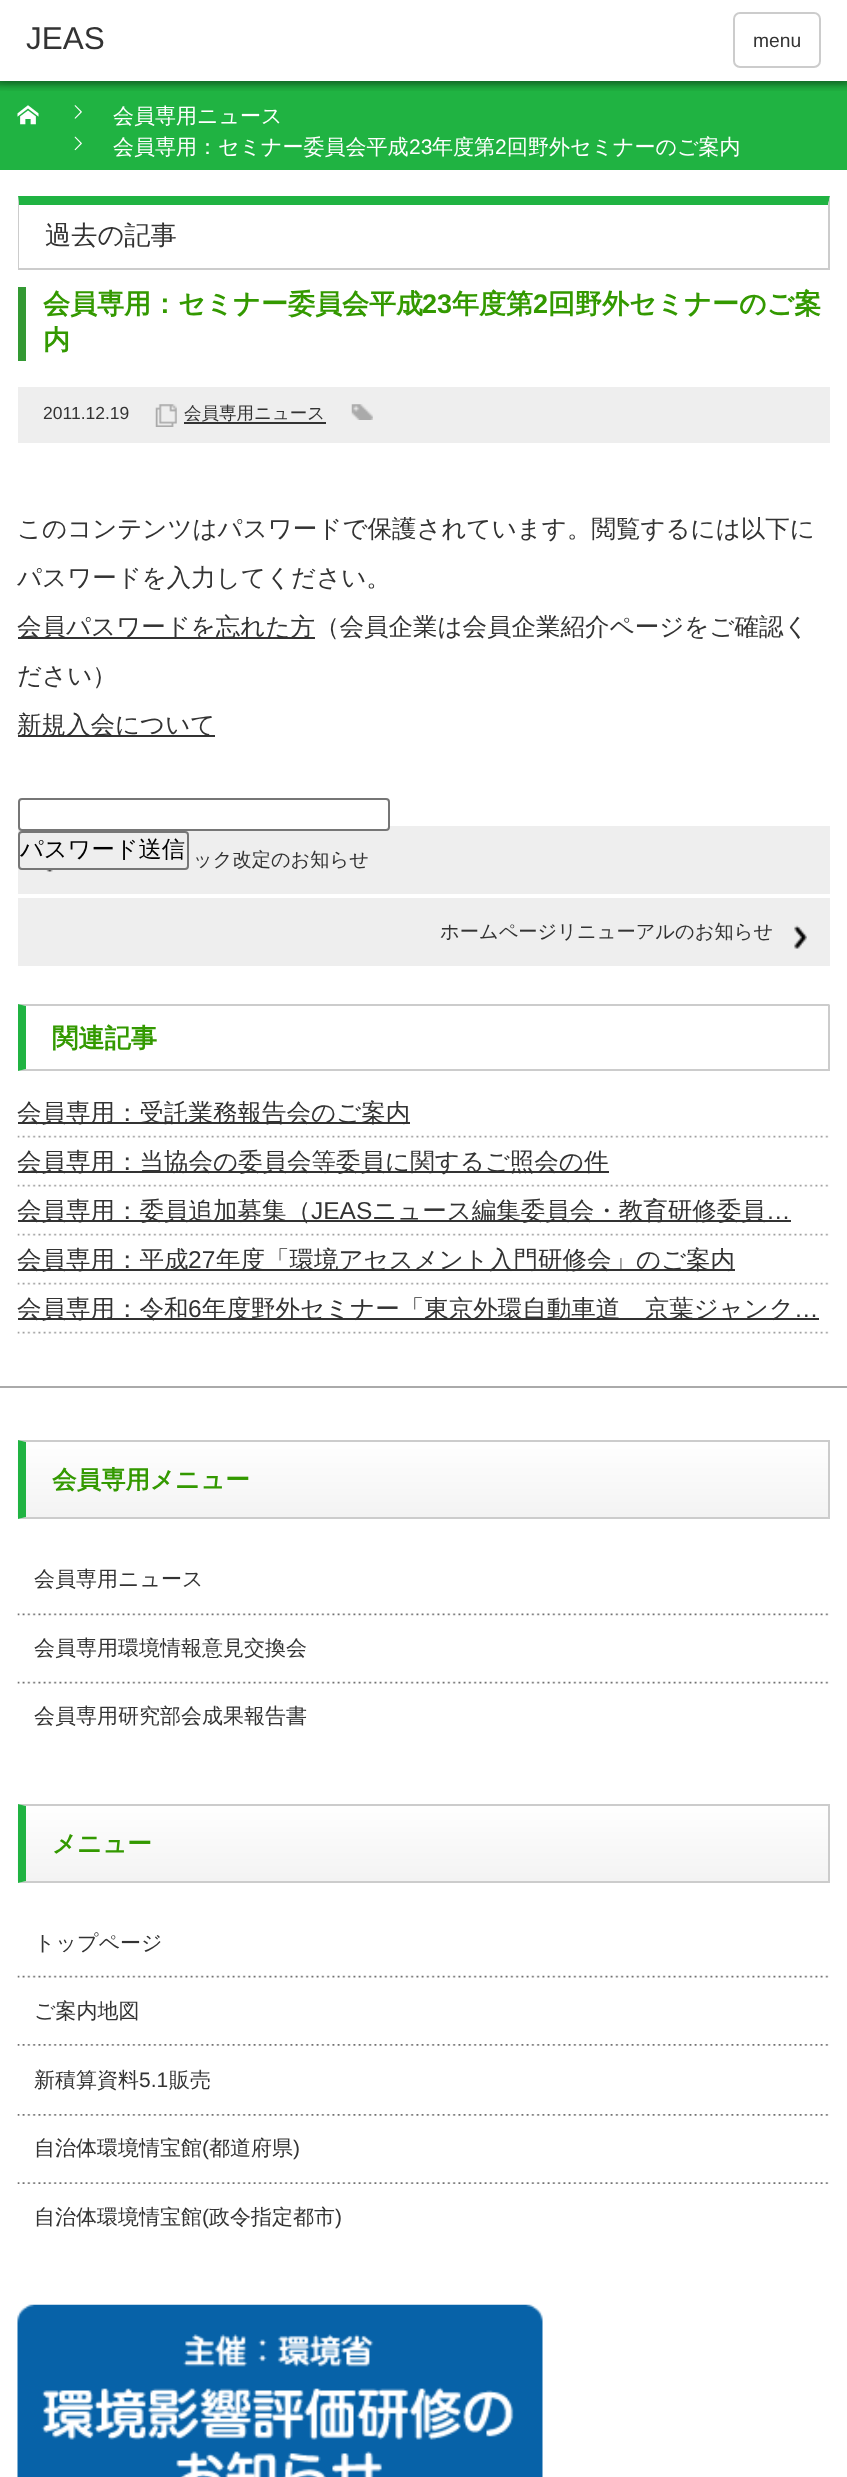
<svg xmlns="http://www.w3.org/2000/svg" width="847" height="2477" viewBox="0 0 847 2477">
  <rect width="100%" height="100%" fill="rgb(255,255,255)"/>
  <rect x="0" y="81" width="847" height="89" fill="rgb(32,179,66)"/>
  <image x="0" y="81" width="847" height="10" href="pic1.png"/>
  <rect x="0" y="0" width="847" height="81" fill="rgba(0,0,0,0.3)" filter="blur(4.5px)"/>
  <rect x="0" y="0" width="847" height="81" fill="rgb(255,255,255)"/>
  <text x="26" y="49" font-family="Liberation Sans" font-size="31.5" fill="rgb(51,51,51)">JEAS</text>
  <rect x="734" y="13" width="86" height="54" rx="6" fill="none" stroke="rgb(204,204,204)" stroke-width="2"/>
  <text x="753" y="47" font-family="Liberation Sans" font-size="19.25" fill="rgb(51,51,51)">menu</text>
  <image x="17" y="105" width="22" height="20" href="pic2.png"/>
  <image x="74" y="105" width="8" height="14" href="pic3.png"/>
  <text x="113" y="123" font-family="WenQuanYi Zen Hei" font-size="21" font-weight="500" fill="rgb(255,255,255)">会員専用ニュース</text>
  <image x="74" y="136" width="8" height="15" href="pic4.png"/>
  <text x="113" y="154" font-family="WenQuanYi Zen Hei" font-size="21" font-weight="500" fill="rgb(255,255,255)">会員専用：セミナー委員会平成</text>
  <text x="409" y="154" font-family="Liberation Sans" font-size="21" fill="rgb(255,255,255)">23</text>
  <text x="432" y="154" font-family="WenQuanYi Zen Hei" font-size="21" font-weight="500" fill="rgb(255,255,255)">年度第</text>
  <text x="495" y="154" font-family="Liberation Sans" font-size="21" fill="rgb(255,255,255)">2</text>
  <text x="507" y="154" font-family="WenQuanYi Zen Hei" font-size="21" font-weight="500" fill="rgb(255,255,255)">回野外セミナーのご案内</text>
  <path d="M18 196H830L828 205H19Z" fill="rgb(32,179,66)"/>
  <path d="M830 196V270L828 268V205Z" fill="rgb(204,204,204)"/>
  <rect x="18" y="268" width="812" height="2" fill="rgb(204,204,204)"/>
  <path d="M18 270V196L19 205V268Z" fill="rgb(204,204,204)"/>
  <text x="45" y="244" font-family="WenQuanYi Zen Hei" font-size="26.25" font-weight="500" fill="rgb(51,51,51)">過去の記事</text>
  <rect x="18" y="287" width="8" height="74" fill="rgb(51,153,51)"/>
  <text x="43" y="313" font-family="WenQuanYi Zen Hei" font-size="27" font-weight="bold" fill="rgb(51,153,0)">会員専用：セミナー委員会平成</text>
  <text x="422" y="313" font-family="Liberation Sans" font-size="27" font-weight="bold" fill="rgb(51,153,0)">23</text>
  <text x="452" y="313" font-family="WenQuanYi Zen Hei" font-size="27" font-weight="bold" fill="rgb(51,153,0)">年度第</text>
  <text x="533" y="313" font-family="Liberation Sans" font-size="27" font-weight="bold" fill="rgb(51,153,0)">2</text>
  <g font-family="WenQuanYi Zen Hei" font-size="27" font-weight="bold" fill="rgb(51,153,0)">
    <text x="548" y="313">回野外セミナーのご案</text>
    <text x="43" y="349">内</text>
  </g>
  <rect x="18" y="387" width="812" height="56" fill="rgb(238,238,238)"/>
  <text x="43" y="419" font-family="Liberation Sans" font-size="17.5" fill="rgb(51,51,51)">2011.12.19</text>
  <image x="155" y="404" width="22" height="23" href="pic5.png"/>
  <text x="184" y="419" font-family="WenQuanYi Zen Hei" font-size="17.5" font-weight="500" fill="rgb(51,51,51)">会員専用ニュース</text>
  <rect x="184" y="422" width="142" height="2" fill="rgb(51,51,51)"/>
  <image x="351" y="404" width="22" height="16" href="pic6.png"/>
  <g font-family="WenQuanYi Zen Hei" font-size="24.5" font-weight="500" fill="rgb(51,51,51)">
    <text x="17" y="537">このコンテンツはパスワードで保護されています。閲覧するには以下に</text>
    <text x="17" y="586">パスワードを入力してください。</text>
  </g>
  <rect x="18" y="637" width="297" height="2" fill="rgb(51,51,51)"/>
  <g font-family="WenQuanYi Zen Hei" font-size="24.5" font-weight="500" fill="rgb(51,51,51)">
    <text x="17" y="635">会員パスワードを忘れた方（会員企業は会員企業紹介ページをご確認く</text>
    <text x="17" y="684">ださい）</text>
  </g>
  <rect x="18" y="735" width="197" height="2" fill="rgb(51,51,51)"/>
  <text x="17" y="733" font-family="WenQuanYi Zen Hei" font-size="24.5" font-weight="500" fill="rgb(51,51,51)">新規入会について</text>
  <rect x="18" y="826" width="812" height="68" fill="rgb(238,238,238)"/>
  <rect x="19" y="799" width="370" height="31" rx="3" fill="rgb(255,255,255)" stroke="rgb(118,118,118)" stroke-width="2"/>
  <rect x="19" y="832" width="169" height="37" rx="3" fill="none" stroke="rgb(118,118,118)" stroke-width="2"/>
  <text x="20" y="857" font-family="WenQuanYi Zen Hei" font-size="23.25" font-weight="500" fill="rgb(0,0,0)">パスワード送信</text>
  <image x="46" y="870" width="7" height="2" href="pic7.png"/>
  <text x="193" y="866" font-family="WenQuanYi Zen Hei" font-size="19.25" font-weight="500" fill="rgb(51,51,51)">ック改定のお知らせ</text>
  <rect x="18" y="898" width="812" height="68" fill="rgb(238,238,238)"/>
  <image x="794" y="925" width="13" height="24" href="pic8.png"/>
  <text x="440" y="938" font-family="WenQuanYi Zen Hei" font-size="19.25" font-weight="500" fill="rgb(51,51,51)">ホームページリニューアルのお知らせ</text>
  <path d="M18 1004H830L828 1006H26Z" fill="rgb(204,204,204)"/>
  <rect x="828" y="1005" width="2" height="66" fill="rgb(204,204,204)"/>
  <path d="M830 1071H18L26 1069H828Z" fill="rgb(204,204,204)"/>
  <path d="M18 1071V1004L26 1006V1069Z" fill="rgb(32,179,66)"/>
  <text x="52" y="1047" font-family="WenQuanYi Zen Hei" font-size="26.25" font-weight="bold" fill="rgb(51,153,0)">関連記事</text>
  <image x="17" y="1135" width="812" height="3" href="pic9.png"/>
  <rect x="18" y="1122" width="392" height="2" fill="rgb(51,51,51)"/>
  <text x="17" y="1121" font-family="WenQuanYi Zen Hei" font-size="24.5" font-weight="500" fill="rgb(51,51,51)">会員専用：受託業務報告会のご案内</text>
  <image x="17" y="1184" width="812" height="3" href="pic9.png"/>
  <rect x="18" y="1171" width="591" height="2" fill="rgb(51,51,51)"/>
  <text x="17" y="1170" font-family="WenQuanYi Zen Hei" font-size="24.5" font-weight="500" fill="rgb(51,51,51)">会員専用：当協会の委員会等委員に関するご照会の件</text>
  <image x="17" y="1233" width="812" height="3" href="pic9.png"/>
  <rect x="18" y="1220" width="773" height="2" fill="rgb(51,51,51)"/>
  <text x="17" y="1219" font-family="WenQuanYi Zen Hei" font-size="24.5" font-weight="500" fill="rgb(51,51,51)">会員専用：委員追加募集（</text>
  <text x="311" y="1219" font-family="Liberation Sans" font-size="24.5" fill="rgb(51,51,51)">JEAS</text>
  <text x="372" y="1219" font-family="WenQuanYi Zen Hei" font-size="24.5" font-weight="500" fill="rgb(51,51,51)">ニュース編集委員会・教育研修委員</text>
  <text x="766" y="1219" font-family="Liberation Sans" font-size="24.5" fill="rgb(51,51,51)">…</text>
  <image x="17" y="1282" width="812" height="3" href="pic9.png"/>
  <rect x="18" y="1269" width="717" height="2" fill="rgb(51,51,51)"/>
  <text x="17" y="1268" font-family="WenQuanYi Zen Hei" font-size="24.5" font-weight="500" fill="rgb(51,51,51)">会員専用：平成</text>
  <text x="188" y="1268" font-family="Liberation Sans" font-size="24.5" fill="rgb(51,51,51)">27</text>
  <text x="216" y="1268" font-family="WenQuanYi Zen Hei" font-size="24.5" font-weight="500" fill="rgb(51,51,51)">年度「環境アセスメント入門研修会」のご案内</text>
  <image x="17" y="1331" width="812" height="3" href="pic9.png"/>
  <rect x="18" y="1318" width="801" height="2" fill="rgb(51,51,51)"/>
  <text x="17" y="1317" font-family="WenQuanYi Zen Hei" font-size="24.5" font-weight="500" fill="rgb(51,51,51)">会員専用：令和</text>
  <text x="188" y="1317" font-family="Liberation Sans" font-size="24.5" fill="rgb(51,51,51)">6</text>
  <text x="202" y="1317" font-family="WenQuanYi Zen Hei" font-size="24.5" font-weight="500" fill="rgb(51,51,51)">年度野外セミナー「東京外環自動車道　京葉ジャンク</text>
  <text x="794" y="1317" font-family="Liberation Sans" font-size="24.5" fill="rgb(51,51,51)">…</text>
  <rect x="0" y="1386" width="847" height="2" fill="rgb(170,170,170)"/>
  <image x="17" y="1442" width="811" height="75" href="pic10.png"/>
  <path d="M18 1440H830L828 1442H26Z" fill="rgb(204,204,204)"/>
  <rect x="828" y="1440" width="2" height="79" fill="rgb(204,204,204)"/>
  <path d="M830 1519H18L26 1517H828Z" fill="rgb(204,204,204)"/>
  <path d="M18 1519V1440L26 1442V1517Z" fill="rgb(32,179,66)"/>
  <text x="52" y="1488" font-family="WenQuanYi Zen Hei" font-size="24.5" font-weight="bold" fill="rgb(51,153,0)">会員専用メニュー</text>
  <image x="17" y="1613" width="812" height="3" href="pic11.png"/>
  <text x="34" y="1586" font-family="WenQuanYi Zen Hei" font-size="21" font-weight="500" fill="rgb(51,51,51)">会員専用ニュース</text>
  <image x="17" y="1681" width="812" height="3" href="pic12.png"/>
  <g font-family="WenQuanYi Zen Hei" font-size="21" font-weight="500" fill="rgb(51,51,51)">
    <text x="34" y="1655">会員専用環境情報意見交換会</text>
    <text x="34" y="1723">会員専用研究部会成果報告書</text>
  </g>
  <image x="17" y="1806" width="811" height="75" href="pic10.png"/>
  <path d="M18 1804H830L828 1806H26Z" fill="rgb(204,204,204)"/>
  <rect x="828" y="1804" width="2" height="79" fill="rgb(204,204,204)"/>
  <path d="M830 1883H18L26 1881H828Z" fill="rgb(204,204,204)"/>
  <path d="M18 1883V1804L26 1806V1881Z" fill="rgb(32,179,66)"/>
  <text x="52" y="1852" font-family="WenQuanYi Zen Hei" font-size="24.5" font-weight="bold" fill="rgb(51,153,0)">メニュー</text>
  <image x="17" y="1975" width="812" height="3" href="pic12.png"/>
  <text x="34" y="1950" font-family="WenQuanYi Zen Hei" font-size="21" font-weight="500" fill="rgb(51,51,51)">トップページ</text>
  <image x="17" y="2044" width="812" height="2" href="pic13.png"/>
  <text x="34" y="2018" font-family="WenQuanYi Zen Hei" font-size="21" font-weight="500" fill="rgb(51,51,51)">ご案内地図</text>
  <image x="17" y="2114" width="812" height="2" href="pic13.png"/>
  <text x="34" y="2087" font-family="WenQuanYi Zen Hei" font-size="21" font-weight="500" fill="rgb(51,51,51)">新積算資料</text>
  <text x="139" y="2087" font-family="Liberation Sans" font-size="21" fill="rgb(51,51,51)">5.1</text>
  <text x="169" y="2087" font-family="WenQuanYi Zen Hei" font-size="21" font-weight="500" fill="rgb(51,51,51)">販売</text>
  <image x="17" y="2182" width="812" height="2" href="pic14.png"/>
  <text x="34" y="2155" font-family="WenQuanYi Zen Hei" font-size="21" font-weight="500" fill="rgb(51,51,51)">自治体環境情宝館</text>
  <text x="202" y="2155" font-family="Liberation Sans" font-size="21" fill="rgb(51,51,51)">(</text>
  <text x="209" y="2155" font-family="WenQuanYi Zen Hei" font-size="21" font-weight="500" fill="rgb(51,51,51)">都道府県</text>
  <text x="293" y="2155" font-family="Liberation Sans" font-size="21" fill="rgb(51,51,51)">)</text>
  <text x="34" y="2224" font-family="WenQuanYi Zen Hei" font-size="21" font-weight="500" fill="rgb(51,51,51)">自治体環境情宝館</text>
  <text x="202" y="2224" font-family="Liberation Sans" font-size="21" fill="rgb(51,51,51)">(</text>
  <text x="209" y="2224" font-family="WenQuanYi Zen Hei" font-size="21" font-weight="500" fill="rgb(51,51,51)">政令指定都市</text>
  <text x="335" y="2224" font-family="Liberation Sans" font-size="21" fill="rgb(51,51,51)">)</text>
  <image x="17" y="2304" width="526" height="173" href="pic15.png"/>
</svg>
